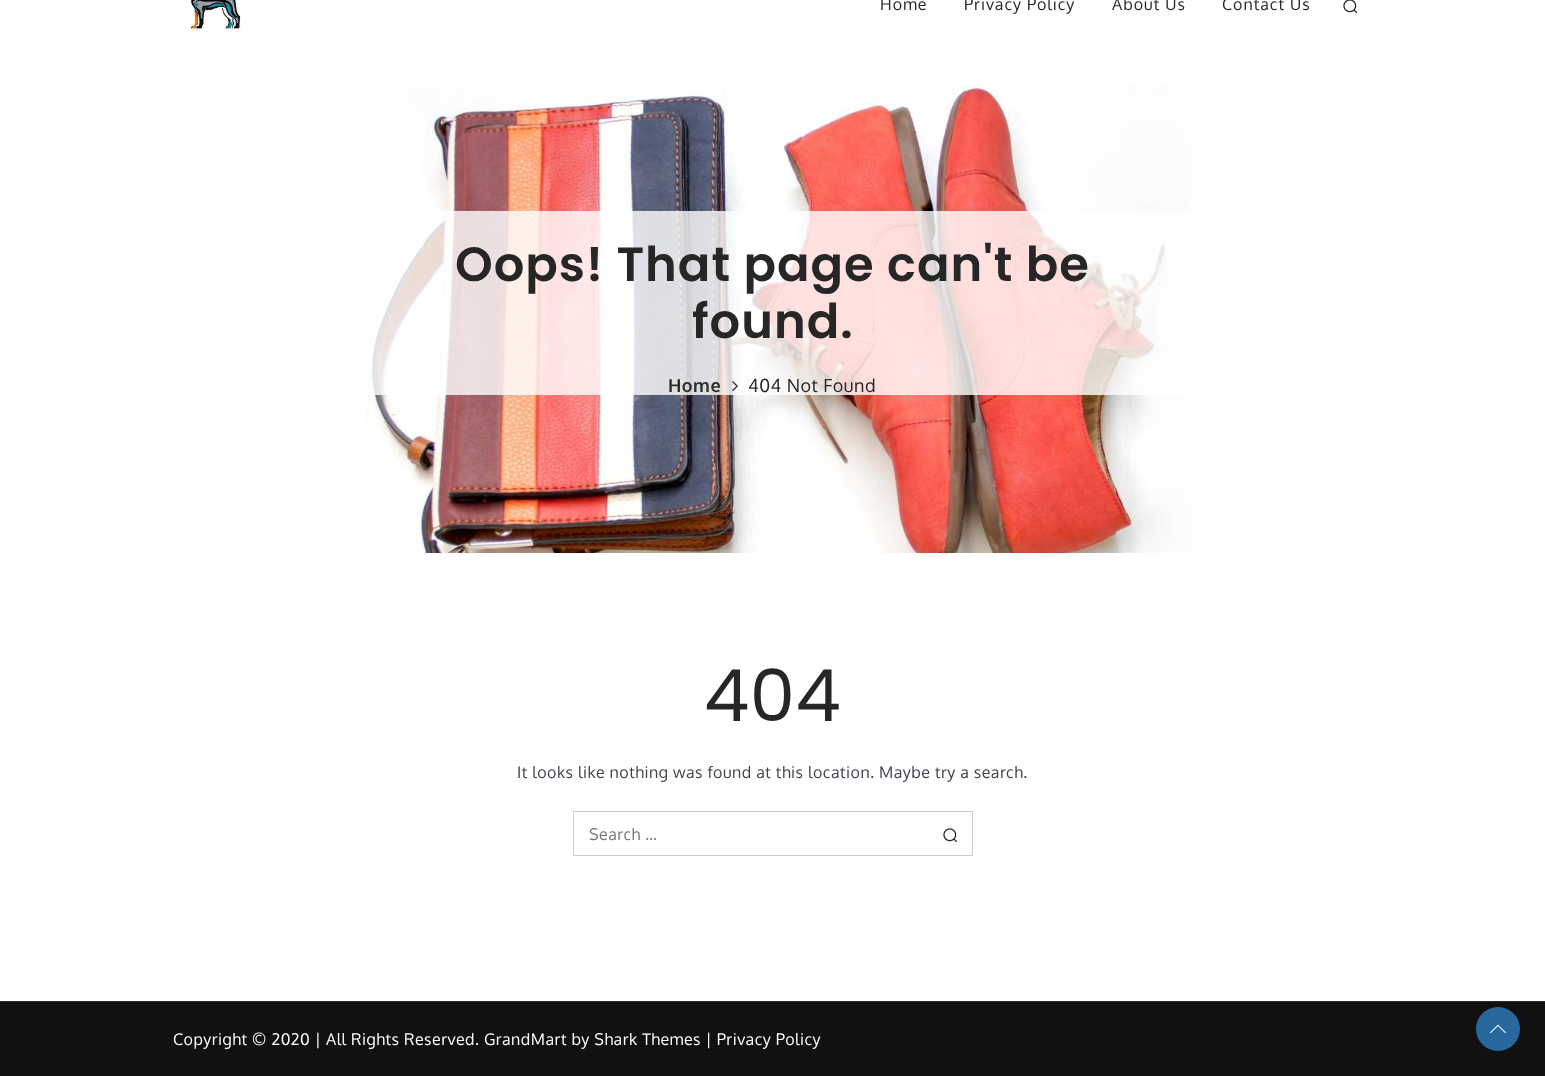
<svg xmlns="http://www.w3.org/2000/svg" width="1545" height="1076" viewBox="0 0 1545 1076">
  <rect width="100%" height="100%" fill="rgb(255,255,255)"/>
  <image x="189" y="0" width="53" height="30" href="pic1.png"/>
  <g font-family="Oxygen" font-size="16" letter-spacing="1" fill="rgb(38,38,38)">
    <text x="880" y="10">Home</text>
    <text x="964" y="10">Privacy Policy</text>
    <text x="1112" y="10">About Us</text>
    <text x="1222" y="10">Contact Us</text>
  </g>
  <image x="1343" y="0" width="14" height="13" href="pic2.png"/>
  <image x="365" y="82" width="826" height="471" href="pic3.png"/>
  <rect x="367" y="211" width="824" height="184" fill="rgba(255,255,255,0.8)"/>
  <g font-family="Poppins" font-size="48" font-weight="600" letter-spacing="1" fill="rgb(38,38,38)">
    <text x="455" y="281">Oops! That page can't be</text>
    <text x="692" y="338">found.</text>
  </g>
  <text x="668" y="392" font-family="Oxygen" font-size="18" font-weight="bold" letter-spacing="0.5" fill="rgb(44,44,45)">Home</text>
  <image x="732" y="381" width="6" height="10" href="pic4.png"/>
  <text x="748" y="392" font-family="Oxygen" font-size="18" letter-spacing="0.5" fill="rgb(38,38,38)">404 Not Found</text>
  <text x="704" y="721" font-family="Poppins" font-size="72" letter-spacing="0.5" fill="rgb(38,38,38)">404</text>
  <text x="517" y="778" font-family="Oxygen" font-size="16" letter-spacing="0.5" fill="rgb(64,67,74)">It looks like nothing was found at this location. Maybe try a search.</text>
  <rect x="573.5" y="811.5" width="399" height="44" fill="none" stroke="rgb(204,204,204)"/>
  <text x="589" y="840" font-family="Oxygen" font-size="16" letter-spacing="0.5" fill="rgb(117,117,117)">Search …</text>
  <image x="943" y="828" width="14" height="14" href="pic5.png"/>
  <rect x="0" y="1002" width="1545" height="74" fill="rgb(17,17,17)"/>
  <rect x="0" y="1001" width="1545" height="1" fill="rgb(41,41,41)"/>
  <text x="173" y="1045" font-family="Oxygen" font-size="16" letter-spacing="0.5" fill="rgb(255,255,255)">Copyright © 2020 | All Rights Reserved. GrandMart by Shark Themes | Privacy Policy</text>
  <circle cx="1498" cy="1029" r="22" fill="rgb(40,104,158)"/>
  <image x="1490" y="1024" width="16" height="10" href="pic6.png"/>
</svg>
